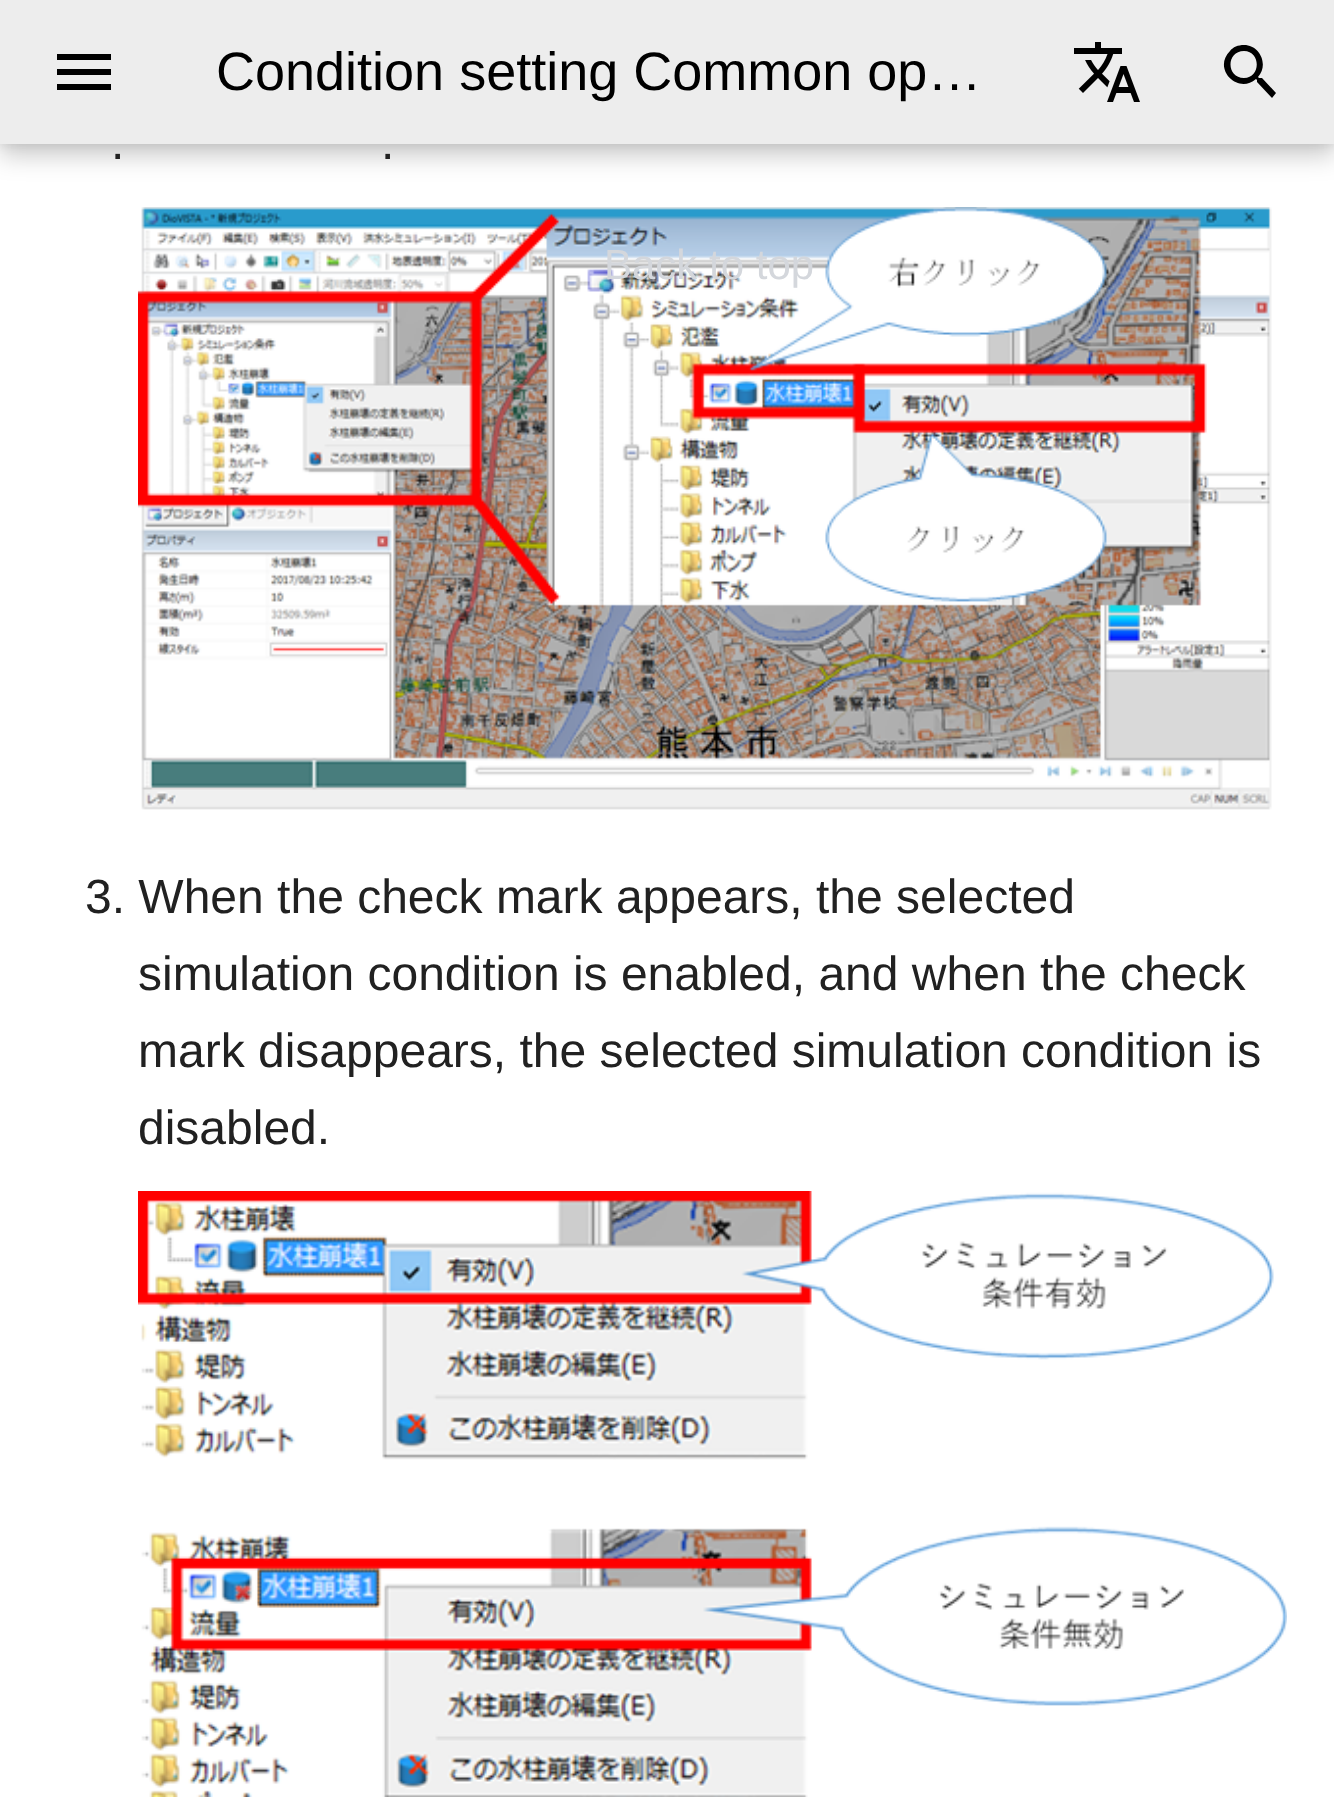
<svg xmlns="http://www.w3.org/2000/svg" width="1334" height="1799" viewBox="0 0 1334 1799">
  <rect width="100%" height="100%" fill="rgb(255,255,255)"/>
  <rect x="0" y="12" width="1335" height="144" fill="rgba(0,0,0,0.2)" filter="blur(12px)"/>
  <rect x="0" y="0" width="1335" height="144" fill="rgba(0,0,0,0.1)" filter="blur(6px)"/>
  <rect x="0" y="0" width="1334" height="144" fill="rgb(237,237,237)"/>
  <path d="M57 54H111V60H57V54M57 69H111V75H57V69M57 84H111V90H57Z" fill="rgb(0,0,0)"/>
  <text x="216" y="90" font-family="Liberation Sans" font-size="54" fill="rgb(0,0,0)">Condition setting Common op…</text>
  <image x="1074" y="42" width="66" height="60" href="pic1.png"/>
  <path d="M1244 45C1260 45 1269 65 1258 77L1259 78H1262L1276 93L1272 98L1257 82V80L1256 79C1238 95 1212 69 1230 51C1233 47 1238 45 1244 45M1244 51C1226 51 1226 78 1244 78C1261 78 1261 51 1244 51Z" fill="rgb(0,0,0)"/>
  <g font-family="Liberation Sans" font-size="48" fill="rgb(33,33,33)">
    <text x="111" y="159">.</text>
    <text x="381" y="159">.</text>
  </g>
  <image x="138" y="207" width="1134" height="603" href="pic2.png"/>
  <g font-family="Liberation Sans" font-size="48" fill="rgb(33,33,33)">
    <text x="85" y="913">3. When the check mark appears, the selected</text>
    <text>
      <tspan x="138" y="990">simulation condition is enabled, and when the check</tspan>
      <tspan x="138" y="1067">mark disappears, the selected simulation condition is</tspan>
      <tspan x="138" y="1144">disabled.</tspan>
    </text>
  </g>
  <image x="138" y="1191" width="1149" height="606" href="pic3.png"/>
  <text x="604" y="279" font-family="Liberation Sans" font-size="42" fill="rgb(212,215,220)">Back to top</text>
</svg>
